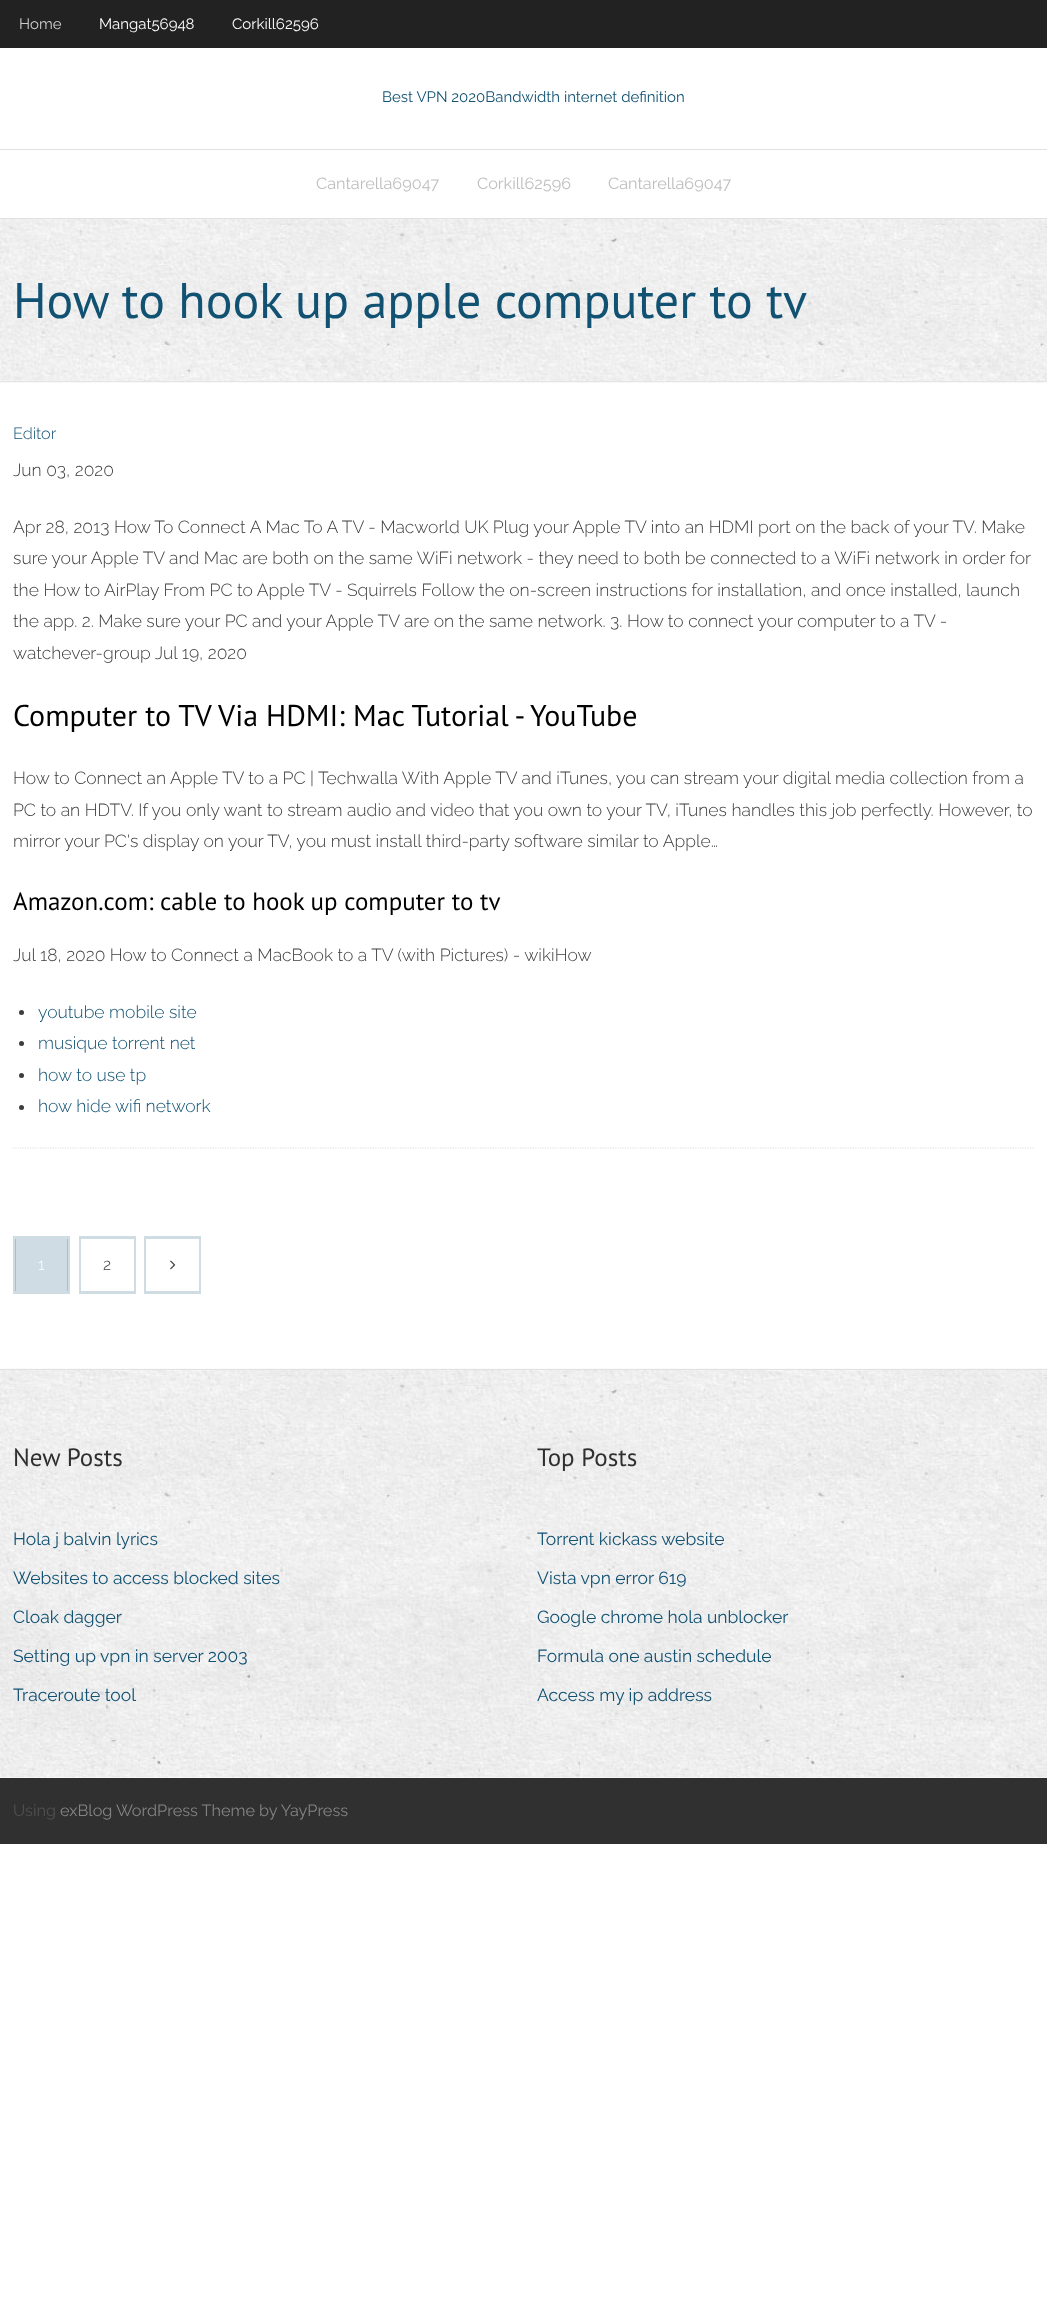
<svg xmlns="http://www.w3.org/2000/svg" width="1047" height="2323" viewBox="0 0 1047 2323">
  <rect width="100%" height="100%" fill="rgb(255,255,255)"/>
  <rect x="0" y="0" width="1047" height="48" fill="rgb(34,34,34)"/>
  <text x="19" y="29" font-family="Raleway" font-size="15" fill="rgb(204,204,204)">Home</text>
  <g font-family="Raleway" font-size="15" fill="rgb(255,255,255)">
    <text x="99" y="29">Mangat56948</text>
    <text x="232" y="29">Corkill62596</text>
  </g>
  <text x="382" y="102" font-family="Raleway" font-size="15" fill="rgb(17,81,114)">Best VPN 2020Bandwidth internet definition</text>
  <rect x="0" y="149" width="1047" height="1" fill="rgb(225,225,225)"/>
  <rect x="0" y="218" width="1047" height="1" fill="rgb(225,225,225)"/>
  <g font-family="Raleway" font-size="16.25" fill="rgb(190,190,190)">
    <text x="316" y="189">Cantarella69047</text>
    <text x="477" y="189">Corkill62596</text>
    <text x="608" y="189">Cantarella69047</text>
  </g>
  <image x="0" y="219" width="1047" height="164" href="pic1.png"/>
  <rect x="0" y="381" width="1047" height="1" fill="rgb(229,229,229)"/>
  <text x="13" y="318" font-family="PT Sans" font-size="50" fill="rgb(17,81,114)">How to hook up apple computer to tv</text>
  <path d="M12.5 1148H1035" fill="none" stroke="rgb(221,221,221)" stroke-width="1.2" stroke-dasharray="1.25 1.25"/>
  <text x="13" y="439" font-family="Raleway" font-size="16.25" font-weight="300" fill="rgb(17,81,114)">Editor</text>
  <g font-family="Raleway" font-size="17.5" font-weight="300" fill="rgb(61,61,61)">
    <text x="13" y="476">Jun 03, 2020</text>
    <text>
      <tspan x="13" y="533">Apr 28, 2013 How To Connect A Mac To A TV - Macworld UK Plug your Apple TV into an HDMI port on the back of your TV. Make</tspan>
      <tspan x="13" y="564">sure your Apple TV and Mac are both on the same WiFi network - they need to both be connected to a WiFi network in order for</tspan>
      <tspan x="13" y="596">the How to AirPlay From PC to Apple TV - Squirrels Follow the on-screen instructions for installation, and once installed, launch</tspan>
      <tspan x="13" y="627">the app. 2. Make sure your PC and your Apple TV are on the same network. 3. How to connect your computer to a TV -</tspan>
      <tspan x="13" y="659">watchever-group Jul 19, 2020</tspan>
    </text>
  </g>
  <text x="13" y="726" font-family="PT Sans" font-size="30" fill="rgb(0,0,0)">Computer to TV Via HDMI: Mac Tutorial - YouTube</text>
  <g font-family="Raleway" font-size="17.5" font-weight="300" fill="rgb(61,61,61)">
    <text>
      <tspan x="13" y="784">How to Connect an Apple TV to a PC | Techwalla With Apple TV and iTunes, you can stream your digital media collection from a</tspan>
      <tspan x="13" y="816">PC to an HDTV. If you only want to stream audio and video that you own to your TV, iTunes handles this job perfectly. However, to</tspan>
      <tspan x="13" y="847">mirror your PC's display on your TV, you must install third-party software similar to Apple…</tspan>
    </text>
  </g>
  <text x="13" y="910" font-family="PT Sans" font-size="25" fill="rgb(0,0,0)">Amazon.com: cable to hook up computer to tv</text>
  <text x="13" y="961" font-family="Raleway" font-size="17.5" font-weight="300" fill="rgb(61,61,61)">Jul 18, 2020 How to Connect a MacBook to a TV (with Pictures) - wikiHow</text>
  <circle cx="21.5" cy="1012.5" r="2.5" fill="rgb(61,61,61)"/>
  <text x="38" y="1018" font-family="Raleway" font-size="17.5" font-weight="300" fill="rgb(17,81,114)">youtube mobile site</text>
  <circle cx="21.5" cy="1043.5" r="2.5" fill="rgb(61,61,61)"/>
  <text x="38" y="1049" font-family="Raleway" font-size="17.5" font-weight="300" fill="rgb(17,81,114)">musique torrent net</text>
  <circle cx="21.5" cy="1075.5" r="2.5" fill="rgb(61,61,61)"/>
  <text x="38" y="1081" font-family="Raleway" font-size="17.5" font-weight="300" fill="rgb(17,81,114)">how to use tp</text>
  <circle cx="21.5" cy="1107.5" r="2.5" fill="rgb(61,61,61)"/>
  <text x="38" y="1112" font-family="Raleway" font-size="17.5" font-weight="300" fill="rgb(17,81,114)">how hide wifi network</text>
  <rect x="14.5" y="1237.5" width="54" height="55" fill="none" stroke="rgb(207,220,227)" stroke-width="3"/>
  <rect x="15" y="1239" width="53" height="52" fill="rgba(17,81,114,0.2)"/>
  <text x="38" y="1270" font-family="Raleway" font-size="16" font-weight="300" fill="rgb(255,255,255)">1</text>
  <rect x="80.5" y="1237.5" width="54" height="55" fill="none" stroke="rgb(207,220,227)" stroke-width="3"/>
  <rect x="81" y="1239" width="53" height="52" fill="rgb(255,255,255)"/>
  <text x="103" y="1270" font-family="Raleway" font-size="16" font-weight="300" fill="rgb(61,61,61)">2</text>
  <rect x="145.5" y="1237.5" width="54" height="55" fill="none" stroke="rgb(207,220,227)" stroke-width="3"/>
  <rect x="146" y="1239" width="53" height="52" fill="rgb(255,255,255)"/>
  <image x="170" y="1260" width="6" height="10" href="pic2.png"/>
  <image x="0" y="1368" width="1047" height="410" href="pic3.png"/>
  <rect x="0" y="1369" width="1047" height="1" fill="rgb(225,225,225)"/>
  <text x="13" y="1466" font-family="PT Sans" font-size="25" fill="rgb(47,47,47)">New Posts</text>
  <g font-family="Raleway" font-size="17.5" fill="rgb(17,81,114)">
    <text x="13" y="1545">Hola j balvin lyrics</text>
    <text x="13" y="1584">Websites to access blocked sites</text>
    <text x="13" y="1623">Cloak dagger</text>
    <text x="13" y="1662">Setting up vpn in server 2003</text>
    <text x="13" y="1701">Traceroute tool</text>
  </g>
  <text x="537" y="1466" font-family="PT Sans" font-size="25" fill="rgb(47,47,47)">Top Posts</text>
  <g font-family="Raleway" font-size="17.5" fill="rgb(17,81,114)">
    <text x="537" y="1545">Torrent kickass website</text>
    <text x="537" y="1584">Vista vpn error 619</text>
    <text x="537" y="1623">Google chrome hola unblocker</text>
    <text x="537" y="1662">Formula one austin schedule</text>
    <text x="537" y="1701">Access my ip address</text>
  </g>
  <rect x="0" y="1778" width="1047" height="66" fill="rgb(48,48,48)"/>
  <text x="13" y="1816" font-family="Raleway" font-size="16.25" fill="rgb(80,80,80)">Using</text>
  <text x="60" y="1816" font-family="Raleway" font-size="16.25" fill="rgb(132,132,132)">exBlog WordPress Theme by YayPress</text>
</svg>
